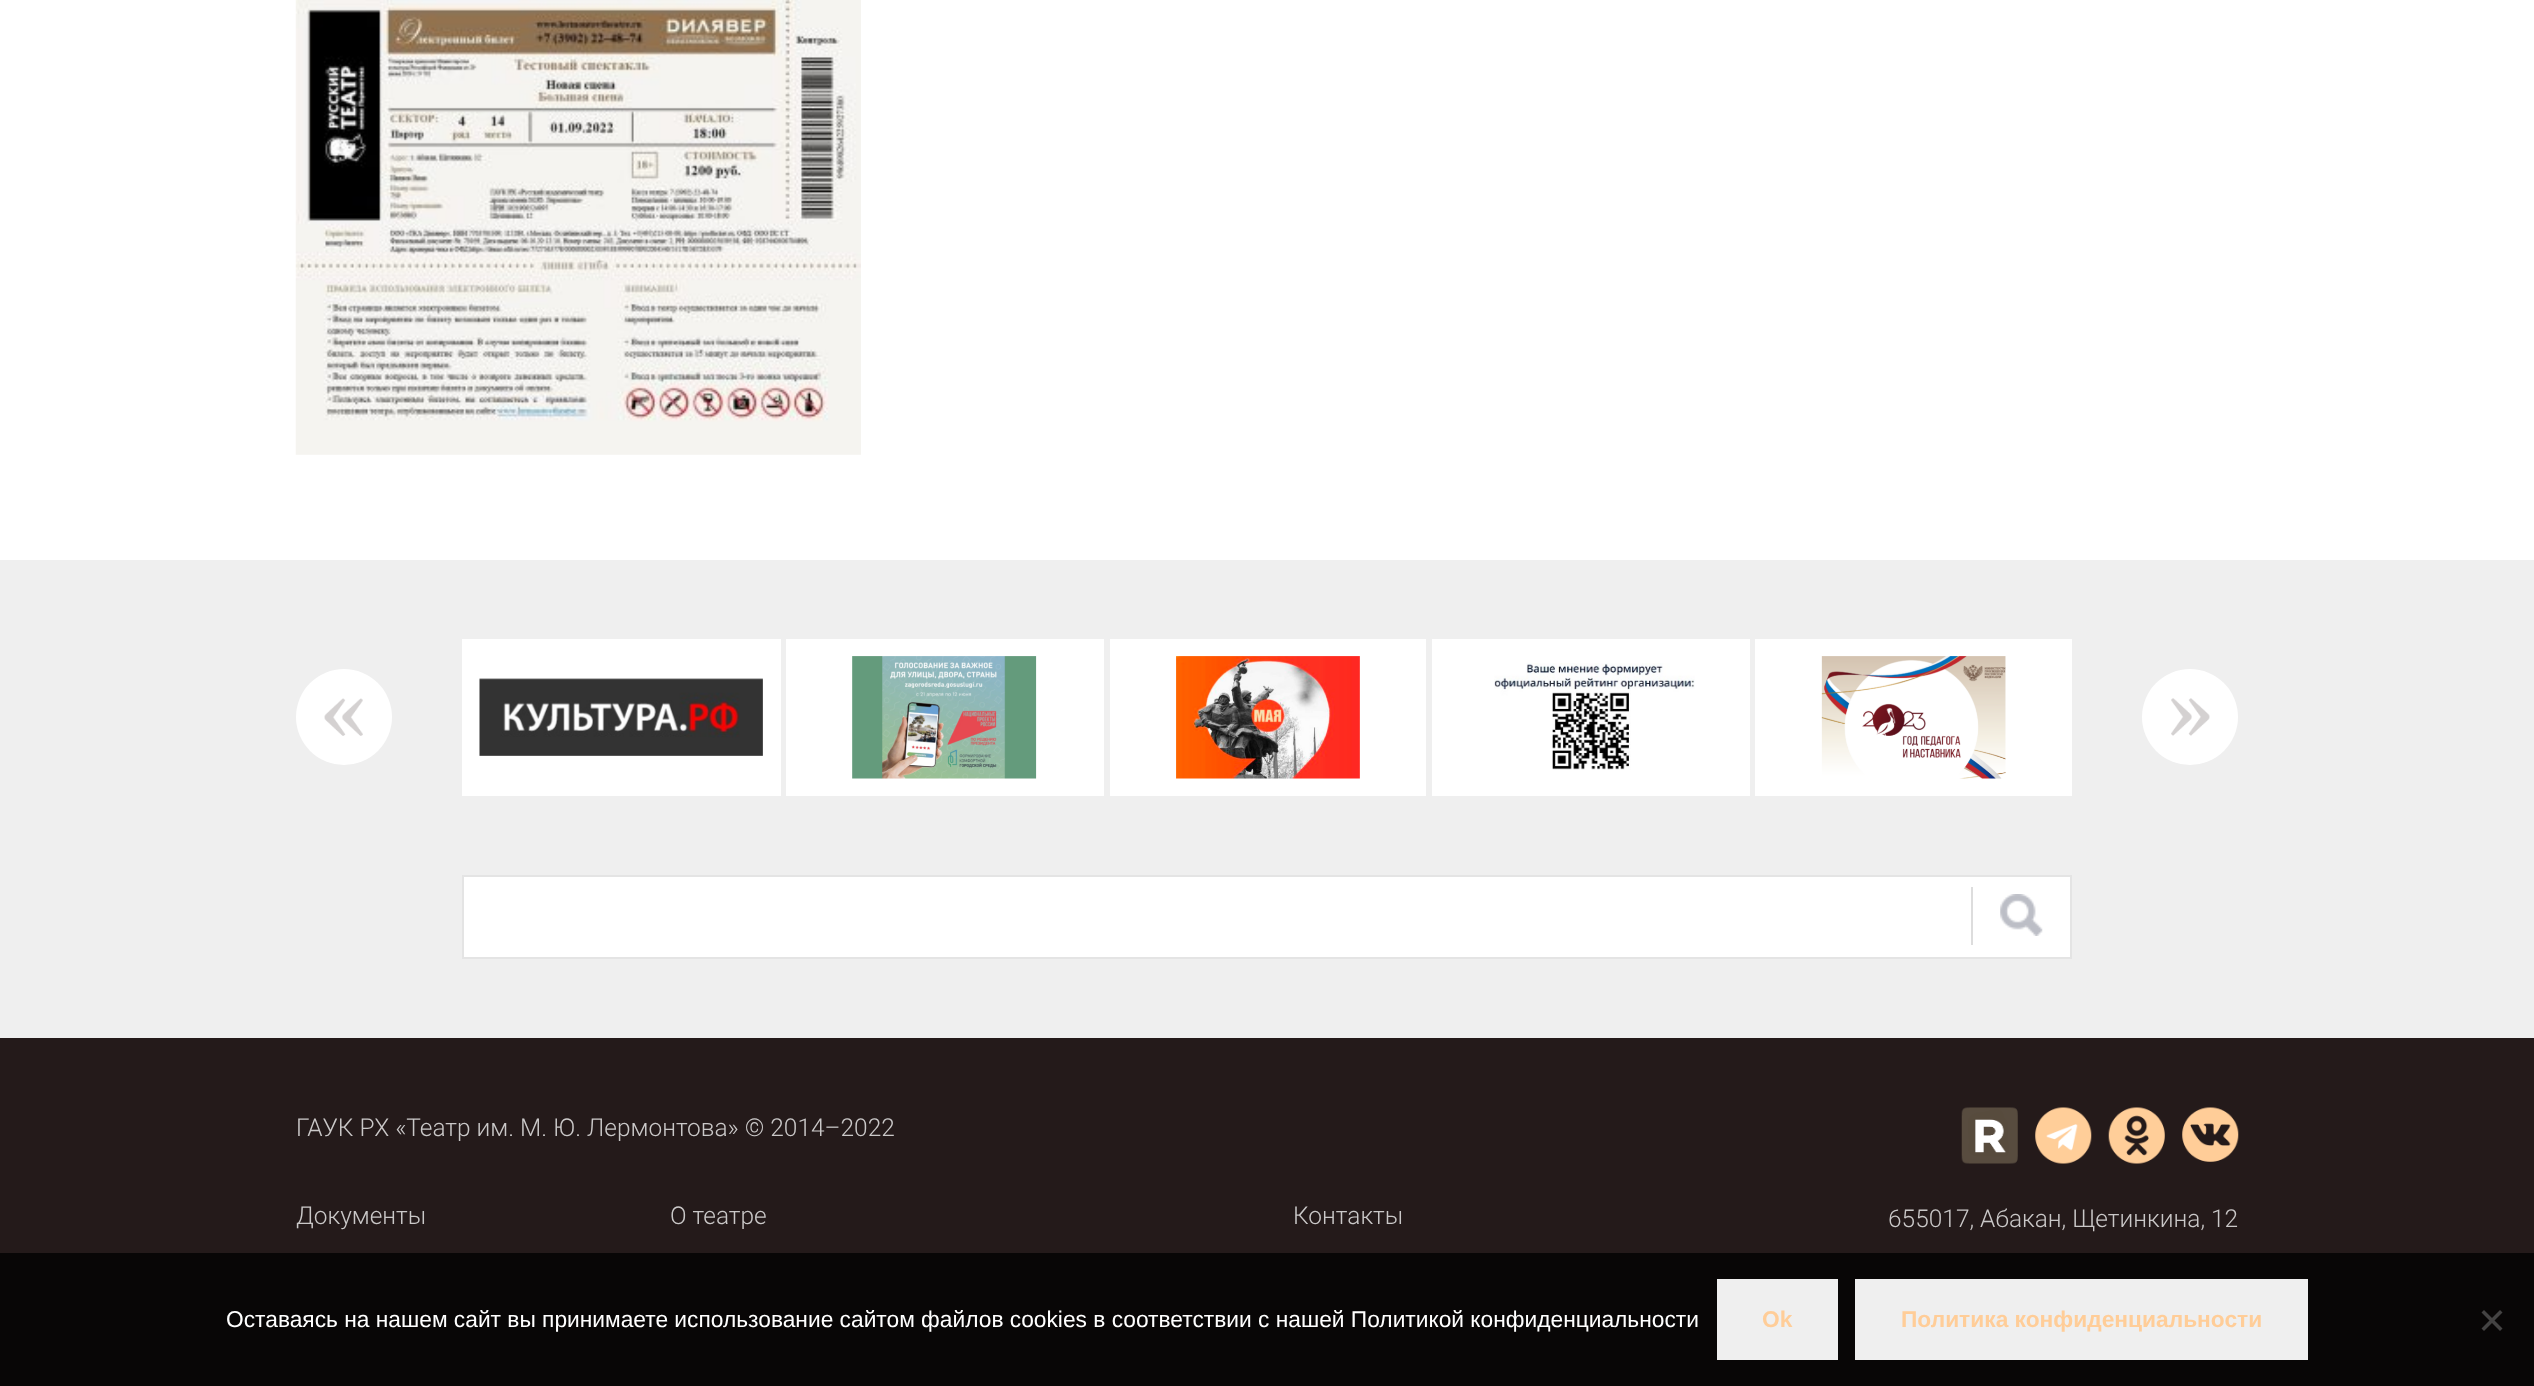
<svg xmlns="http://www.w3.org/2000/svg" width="2534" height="1386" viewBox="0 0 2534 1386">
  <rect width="100%" height="100%" fill="rgb(255,255,255)"/>
  <image x="295" y="0" width="566" height="455" href="pic1.png"/>
  <rect x="0" y="560" width="2534" height="478" fill="rgb(239,239,239)"/>
  <circle cx="344" cy="717" r="48" fill="rgb(255,255,255)"/>
  <image x="324" y="698" width="39" height="38" href="pic2.png"/>
  <rect x="462" y="639" width="319" height="157" fill="rgb(255,255,255)"/>
  <image x="479" y="678" width="284" height="78" href="pic3.png"/>
  <rect x="786" y="639" width="318" height="157" fill="rgb(255,255,255)"/>
  <image x="852" y="656" width="185" height="123" href="pic4.png"/>
  <rect x="1110" y="639" width="316" height="157" fill="rgb(255,255,255)"/>
  <image x="1176" y="656" width="184" height="123" href="pic5.png"/>
  <rect x="1432" y="639" width="318" height="157" fill="rgb(255,255,255)"/>
  <image x="1494" y="663" width="201" height="107" href="pic6.png"/>
  <rect x="1755" y="639" width="317" height="157" fill="rgb(255,255,255)"/>
  <image x="1821" y="656" width="185" height="123" href="pic7.png"/>
  <circle cx="2190" cy="717" r="48" fill="rgb(255,255,255)"/>
  <image x="2171" y="698" width="39" height="38" href="pic8.png"/>
  <rect x="463" y="876" width="1608" height="82" fill="rgb(255,255,255)" stroke="rgb(228,228,228)" stroke-width="2"/>
  <image x="2000" y="894" width="43" height="42" href="pic9.png"/>
  <rect x="1971" y="887" width="2" height="58" fill="rgb(221,221,221)"/>
  <rect x="0" y="1038" width="2534" height="348" fill="rgb(36,26,26)"/>
  <g font-family="Roboto" font-size="24.5" font-weight="300" fill="rgb(202,200,200)">
    <text x="296" y="1136">ГАУК РХ «Театр им. М. Ю. Лермонтова» © 2014–2022</text>
    <text x="296" y="1224">Документы</text>
    <text x="670" y="1224">О театре</text>
    <text x="1293" y="1224">Контакты</text>
  </g>
  <image x="1961" y="1107" width="57" height="57" href="pic10.png"/>
  <image x="2035" y="1107" width="57" height="57" href="pic11.png"/>
  <image x="2108" y="1107" width="57" height="57" href="pic12.png"/>
  <image x="2182" y="1107" width="57" height="55" href="pic13.png"/>
  <text x="1888" y="1227" font-family="Roboto" font-size="24.5" font-weight="300" fill="rgb(202,200,200)">655017, Абакан, Щетинкина, 12</text>
  <rect x="0" y="1253" width="2534" height="133" fill="rgba(0,0,0,0.76)"/>
  <text x="226" y="1327" font-family="Liberation Sans" font-size="22.75" fill="rgb(255,255,255)">Оставаясь на нашем сайт вы принимаете использование сайтом файлов cookies в соответствии с нашей Политикой конфиденциальности</text>
  <rect x="1717" y="1279" width="121" height="81" fill="rgb(239,239,239)"/>
  <text x="1762" y="1327" font-family="Liberation Sans" font-size="22.75" font-weight="bold" fill="rgb(255,205,152)">Ok</text>
  <rect x="1855" y="1279" width="453" height="81" fill="rgb(239,239,239)"/>
  <text x="1901" y="1327" font-family="Liberation Sans" font-size="22.75" font-weight="bold" fill="rgb(255,205,152)">Политика конфиденциальности</text>
  <path d="M2500 1310L2502.5 1312.5L2484 1331L2481.5 1328.5Z" fill="rgb(68,67,67)"/>
  <path d="M2481.5 1312.5L2484 1310L2502.5 1328.5L2500 1331Z" fill="rgb(68,67,67)"/>
</svg>
